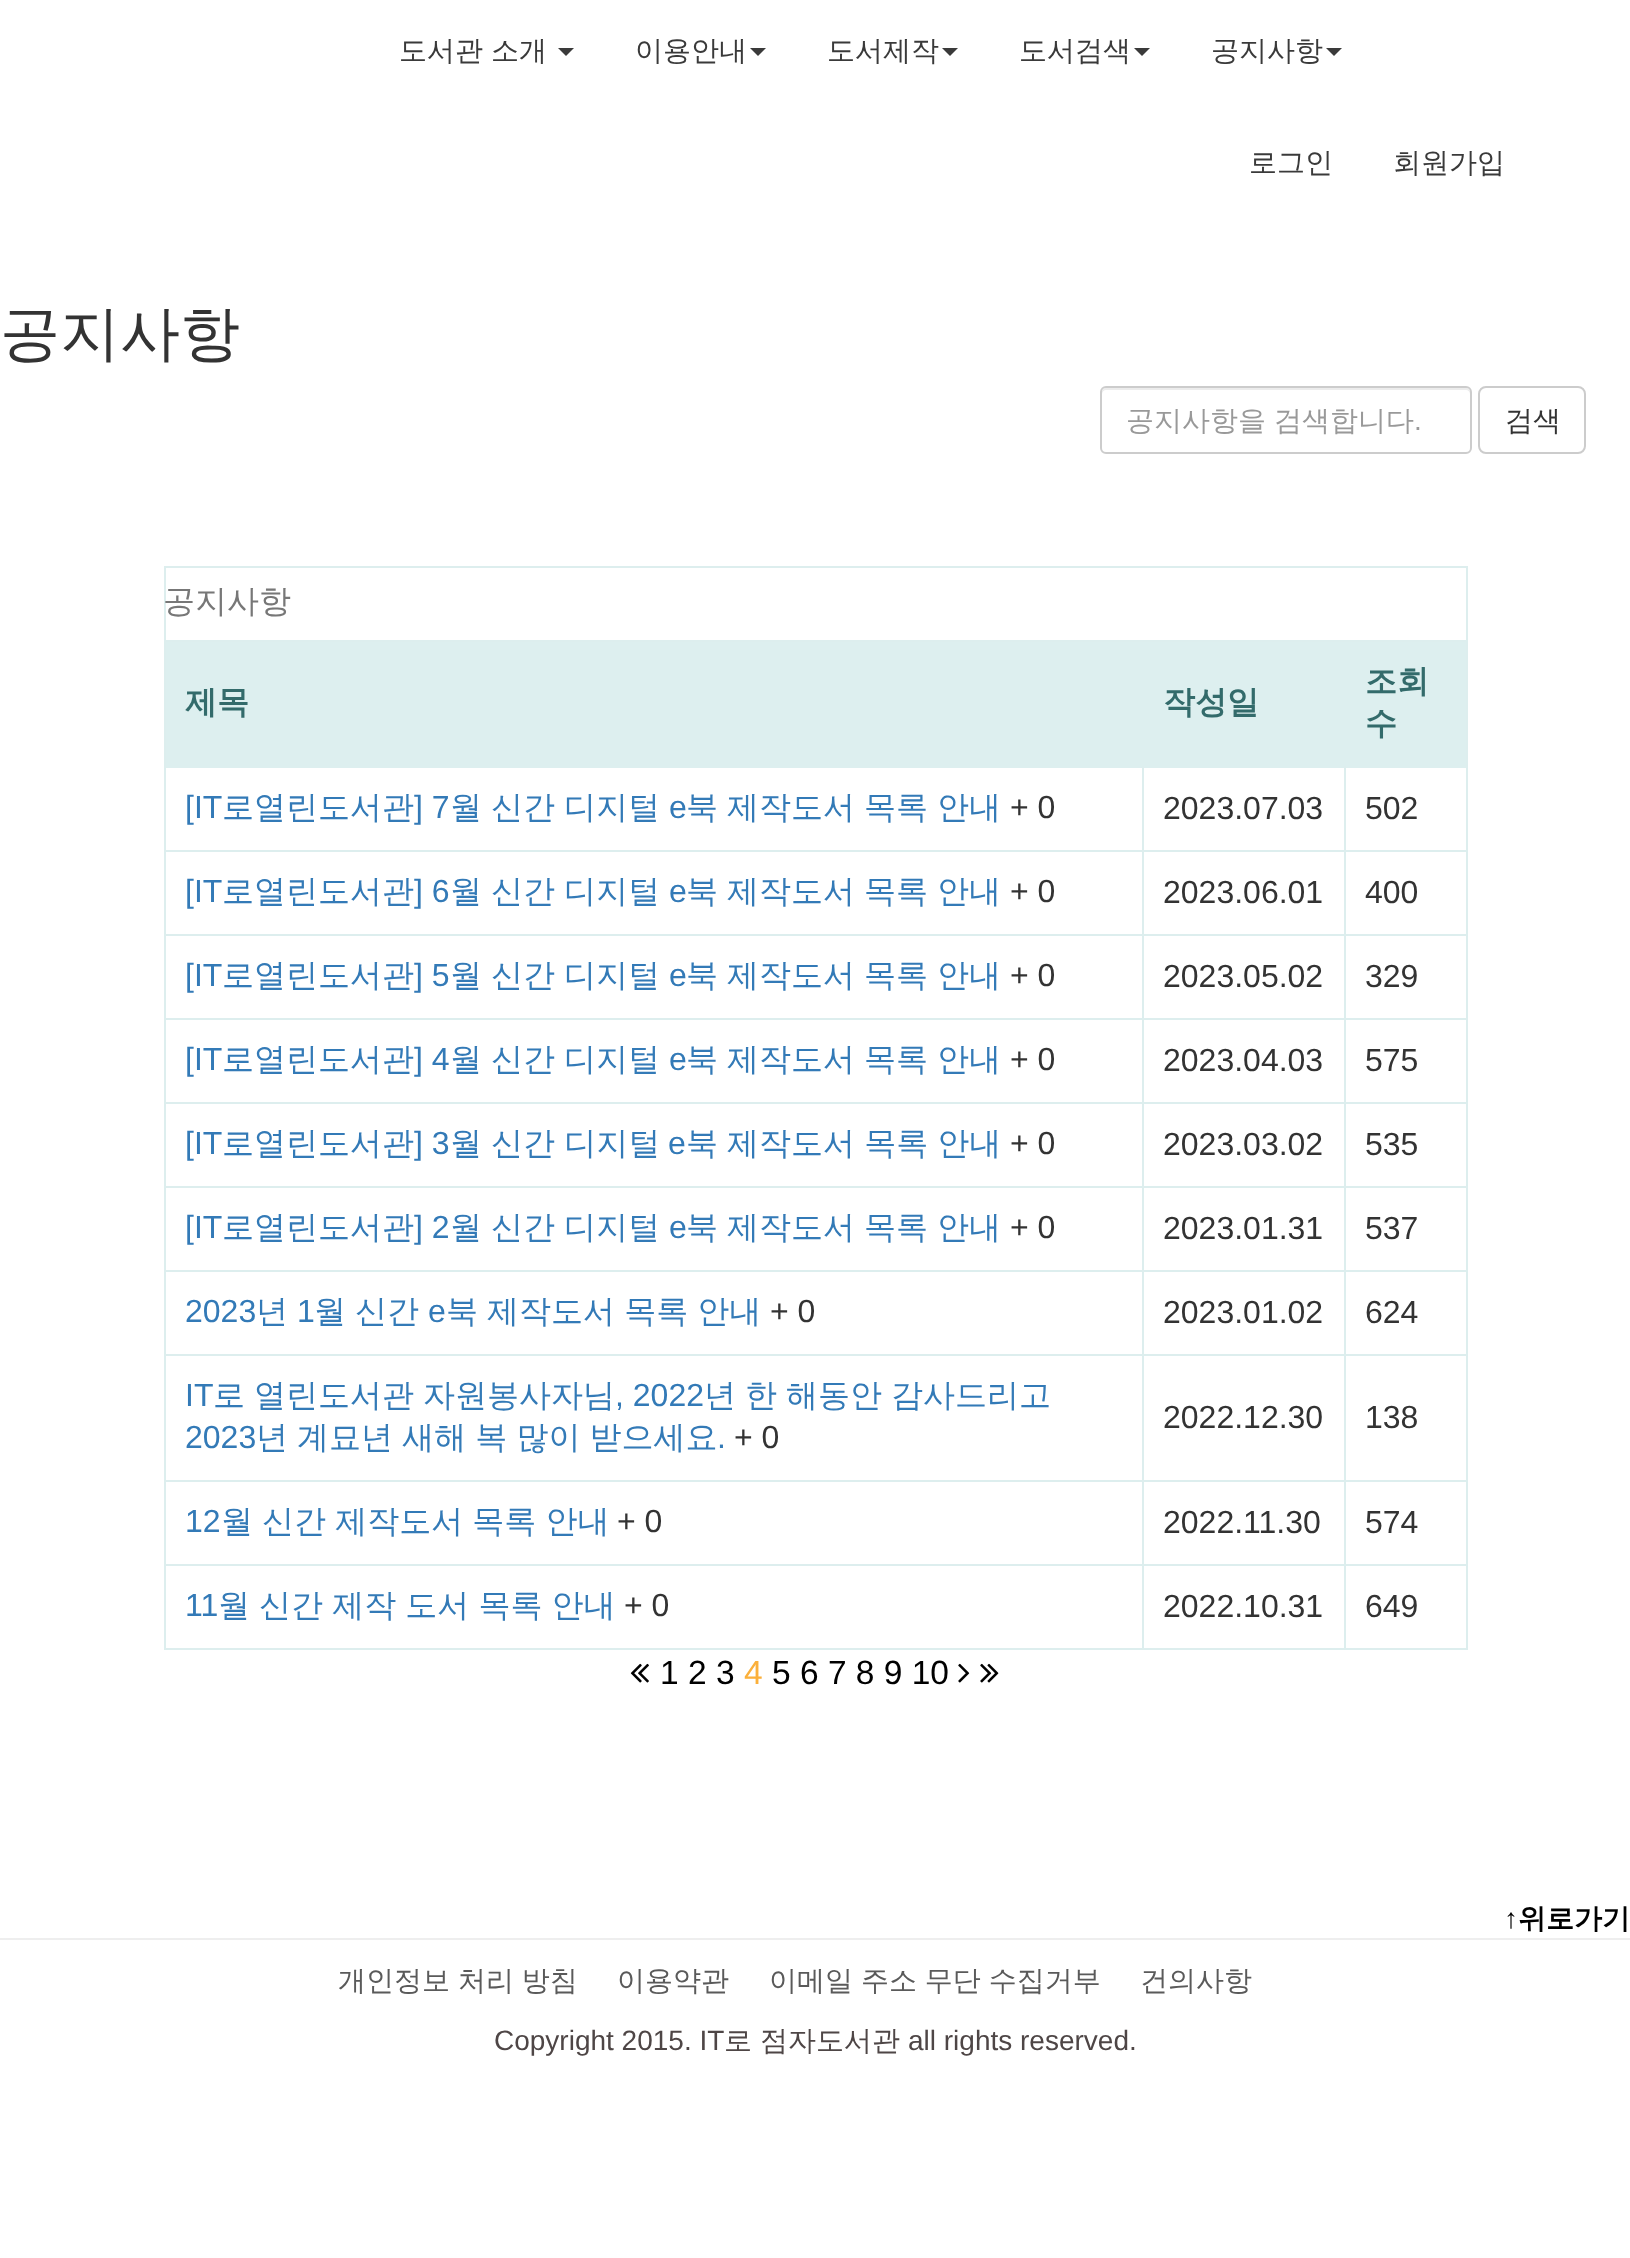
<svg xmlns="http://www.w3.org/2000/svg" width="1630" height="2258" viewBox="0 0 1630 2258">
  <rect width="100%" height="100%" fill="rgb(255,255,255)"/>
  <text x="399" y="60" word-spacing="-0.5" font-family="WenQuanYi Zen Hei" font-size="28" font-weight="500" fill="rgb(58,58,58)">도서관 소개</text>
  <path d="M558 48H574L566 56Z" fill="rgb(58,58,58)"/>
  <text x="635" y="60" font-family="WenQuanYi Zen Hei" font-size="28" font-weight="500" fill="rgb(58,58,58)">이용안내</text>
  <path d="M750 48H766L758 56Z" fill="rgb(58,58,58)"/>
  <text x="827" y="60" font-family="WenQuanYi Zen Hei" font-size="28" font-weight="500" fill="rgb(58,58,58)">도서제작</text>
  <path d="M942 48H958L950 56Z" fill="rgb(58,58,58)"/>
  <text x="1019" y="60" font-family="WenQuanYi Zen Hei" font-size="28" font-weight="500" fill="rgb(58,58,58)">도서검색</text>
  <path d="M1134 48H1150L1142 56Z" fill="rgb(58,58,58)"/>
  <text x="1211" y="60" font-family="WenQuanYi Zen Hei" font-size="28" font-weight="500" fill="rgb(58,58,58)">공지사항</text>
  <path d="M1326 48H1342L1334 56Z" fill="rgb(58,58,58)"/>
  <g font-family="WenQuanYi Zen Hei" font-size="28" font-weight="500" fill="rgb(58,58,58)">
    <text x="1249" y="172">로그인</text>
    <text x="1393" y="172">회원가입</text>
  </g>
  <text x="0" y="354" font-family="WenQuanYi Zen Hei" font-size="60" font-weight="500" fill="rgb(51,51,51)">공지사항</text>
  <path d="M1106 390H1466C1468 390 1470 392 1470 394V392C1470 390 1468 388 1466 388H1106C1104 388 1102 390 1102 392V394C1102 392 1104 390 1106 390Z" fill="rgb(236,236,236)"/>
  <rect x="1101" y="387" width="370" height="66" rx="5" fill="none" stroke="rgb(204,204,204)" stroke-width="2"/>
  <text x="1126" y="430" word-spacing="-0.5" font-family="WenQuanYi Zen Hei" font-size="28" font-weight="500" fill="rgb(153,153,153)">공지사항을 검색합니다</text>
  <text x="1414" y="430" font-family="Liberation Sans" font-size="28" fill="rgb(153,153,153)">.</text>
  <rect x="1479" y="387" width="106" height="66" rx="7" fill="none" stroke="rgb(204,204,204)" stroke-width="2"/>
  <text x="1505" y="430" font-family="WenQuanYi Zen Hei" font-size="28" font-weight="500" fill="rgb(51,51,51)">검색</text>
  <rect x="164" y="566" width="1304" height="2" fill="rgb(221,238,238)"/>
  <rect x="1466" y="566" width="2" height="1084" fill="rgb(221,238,238)"/>
  <rect x="164" y="1648" width="1304" height="2" fill="rgb(221,238,238)"/>
  <rect x="164" y="566" width="2" height="1084" fill="rgb(221,238,238)"/>
  <text x="163" y="612" font-family="WenQuanYi Zen Hei" font-size="32" font-weight="500" fill="rgb(119,119,119)">공지사항</text>
  <rect x="166" y="642" width="1300" height="126" fill="rgb(221,239,239)"/>
  <g font-family="WenQuanYi Zen Hei" font-size="32" font-weight="bold" fill="rgb(51,107,107)">
    <text x="185" y="713">제목</text>
    <text x="1163" y="713">작성일</text>
  </g>
  <rect x="164" y="640" width="1304" height="2" fill="rgb(221,238,238)"/>
  <g font-family="WenQuanYi Zen Hei" font-size="32" font-weight="bold" fill="rgb(51,107,107)">
    <text>
      <tspan x="1365" y="692">조회</tspan>
      <tspan x="1365" y="734">수</tspan>
    </text>
  </g>
  <text x="185" y="818" font-family="Liberation Sans" font-size="32" fill="rgb(51,122,183)">[IT</text>
  <text x="222" y="818" font-family="WenQuanYi Zen Hei" font-size="32" font-weight="500" fill="rgb(51,122,183)">로열린도서관</text>
  <text x="414" y="818" font-family="Liberation Sans" font-size="32" fill="rgb(51,122,183)">] 7</text>
  <g font-family="WenQuanYi Zen Hei" font-size="32" font-weight="500" fill="rgb(51,122,183)">
    <text x="450" y="818">월</text>
    <text x="491" y="818">신간</text>
    <text x="564" y="818">디지털</text>
  </g>
  <text x="669" y="818" font-family="Liberation Sans" font-size="32" fill="rgb(51,122,183)">e</text>
  <g font-family="WenQuanYi Zen Hei" font-size="32" font-weight="500" fill="rgb(51,122,183)">
    <text x="686" y="818">북</text>
    <text x="727" y="818">제작도서</text>
    <text x="864" y="818">목록</text>
    <text x="937" y="818">안내</text>
  </g>
  <text x="1010" y="818" font-family="Liberation Sans" font-size="32" fill="rgb(51,51,51)">+ 0</text>
  <rect x="1344" y="850" width="124" height="2" fill="rgb(221,238,238)"/>
  <rect x="1344" y="934" width="124" height="2" fill="rgb(221,238,238)"/>
  <rect x="1344" y="1018" width="124" height="2" fill="rgb(221,238,238)"/>
  <rect x="1344" y="1102" width="124" height="2" fill="rgb(221,238,238)"/>
  <rect x="1344" y="1186" width="124" height="2" fill="rgb(221,238,238)"/>
  <rect x="1344" y="1270" width="124" height="2" fill="rgb(221,238,238)"/>
  <rect x="1344" y="1354" width="124" height="2" fill="rgb(221,238,238)"/>
  <rect x="1344" y="1480" width="124" height="2" fill="rgb(221,238,238)"/>
  <rect x="1344" y="1564" width="124" height="2" fill="rgb(221,238,238)"/>
  <rect x="1344" y="1564" width="2" height="86" fill="rgb(221,238,238)"/>
  <rect x="1142" y="1564" width="204" height="2" fill="rgb(221,238,238)"/>
  <rect x="1344" y="1480" width="2" height="86" fill="rgb(221,238,238)"/>
  <rect x="1142" y="1480" width="204" height="2" fill="rgb(221,238,238)"/>
  <rect x="1344" y="1354" width="2" height="128" fill="rgb(221,238,238)"/>
  <rect x="1142" y="1354" width="204" height="2" fill="rgb(221,238,238)"/>
  <rect x="1344" y="1270" width="2" height="86" fill="rgb(221,238,238)"/>
  <rect x="1142" y="1270" width="204" height="2" fill="rgb(221,238,238)"/>
  <rect x="1344" y="1186" width="2" height="86" fill="rgb(221,238,238)"/>
  <rect x="1142" y="1186" width="204" height="2" fill="rgb(221,238,238)"/>
  <rect x="1344" y="1102" width="2" height="86" fill="rgb(221,238,238)"/>
  <rect x="1142" y="1102" width="204" height="2" fill="rgb(221,238,238)"/>
  <rect x="1344" y="1018" width="2" height="86" fill="rgb(221,238,238)"/>
  <rect x="1142" y="1018" width="204" height="2" fill="rgb(221,238,238)"/>
  <rect x="1344" y="934" width="2" height="86" fill="rgb(221,238,238)"/>
  <rect x="1142" y="934" width="204" height="2" fill="rgb(221,238,238)"/>
  <rect x="1344" y="850" width="2" height="86" fill="rgb(221,238,238)"/>
  <rect x="1142" y="850" width="204" height="2" fill="rgb(221,238,238)"/>
  <rect x="1142" y="1564" width="2" height="86" fill="rgb(221,238,238)"/>
  <rect x="164" y="1564" width="980" height="2" fill="rgb(221,238,238)"/>
  <rect x="1142" y="1480" width="2" height="86" fill="rgb(221,238,238)"/>
  <rect x="164" y="1480" width="980" height="2" fill="rgb(221,238,238)"/>
  <rect x="1142" y="1354" width="2" height="128" fill="rgb(221,238,238)"/>
  <rect x="164" y="1354" width="980" height="2" fill="rgb(221,238,238)"/>
  <rect x="1142" y="1270" width="2" height="86" fill="rgb(221,238,238)"/>
  <rect x="164" y="1270" width="980" height="2" fill="rgb(221,238,238)"/>
  <rect x="1142" y="1186" width="2" height="86" fill="rgb(221,238,238)"/>
  <rect x="164" y="1186" width="980" height="2" fill="rgb(221,238,238)"/>
  <rect x="1142" y="1102" width="2" height="86" fill="rgb(221,238,238)"/>
  <rect x="164" y="1102" width="980" height="2" fill="rgb(221,238,238)"/>
  <rect x="1142" y="1018" width="2" height="86" fill="rgb(221,238,238)"/>
  <rect x="164" y="1018" width="980" height="2" fill="rgb(221,238,238)"/>
  <rect x="1142" y="934" width="2" height="86" fill="rgb(221,238,238)"/>
  <rect x="164" y="934" width="980" height="2" fill="rgb(221,238,238)"/>
  <rect x="1142" y="850" width="2" height="86" fill="rgb(221,238,238)"/>
  <rect x="164" y="850" width="980" height="2" fill="rgb(221,238,238)"/>
  <rect x="1142" y="766" width="2" height="86" fill="rgb(221,238,238)"/>
  <text x="1163" y="819" font-family="Liberation Sans" font-size="32" fill="rgb(51,51,51)">2023.07.03</text>
  <rect x="1344" y="766" width="2" height="86" fill="rgb(221,238,238)"/>
  <text x="1365" y="819" font-family="Liberation Sans" font-size="32" fill="rgb(51,51,51)">502</text>
  <text x="185" y="902" font-family="Liberation Sans" font-size="32" fill="rgb(51,122,183)">[IT</text>
  <text x="222" y="902" font-family="WenQuanYi Zen Hei" font-size="32" font-weight="500" fill="rgb(51,122,183)">로열린도서관</text>
  <text x="414" y="902" font-family="Liberation Sans" font-size="32" fill="rgb(51,122,183)">] 6</text>
  <g font-family="WenQuanYi Zen Hei" font-size="32" font-weight="500" fill="rgb(51,122,183)">
    <text x="450" y="902">월</text>
    <text x="491" y="902">신간</text>
    <text x="564" y="902">디지털</text>
  </g>
  <text x="669" y="902" font-family="Liberation Sans" font-size="32" fill="rgb(51,122,183)">e</text>
  <g font-family="WenQuanYi Zen Hei" font-size="32" font-weight="500" fill="rgb(51,122,183)">
    <text x="686" y="902">북</text>
    <text x="727" y="902">제작도서</text>
    <text x="864" y="902">목록</text>
    <text x="937" y="902">안내</text>
  </g>
  <g font-family="Liberation Sans" font-size="32" fill="rgb(51,51,51)">
    <text x="1010" y="902">+ 0</text>
    <text x="1163" y="903">2023.06.01</text>
    <text x="1365" y="903">400</text>
  </g>
  <text x="185" y="986" font-family="Liberation Sans" font-size="32" fill="rgb(51,122,183)">[IT</text>
  <text x="222" y="986" font-family="WenQuanYi Zen Hei" font-size="32" font-weight="500" fill="rgb(51,122,183)">로열린도서관</text>
  <text x="414" y="986" font-family="Liberation Sans" font-size="32" fill="rgb(51,122,183)">] 5</text>
  <g font-family="WenQuanYi Zen Hei" font-size="32" font-weight="500" fill="rgb(51,122,183)">
    <text x="450" y="986">월</text>
    <text x="491" y="986">신간</text>
    <text x="564" y="986">디지털</text>
  </g>
  <text x="669" y="986" font-family="Liberation Sans" font-size="32" fill="rgb(51,122,183)">e</text>
  <g font-family="WenQuanYi Zen Hei" font-size="32" font-weight="500" fill="rgb(51,122,183)">
    <text x="686" y="986">북</text>
    <text x="727" y="986">제작도서</text>
    <text x="864" y="986">목록</text>
    <text x="937" y="986">안내</text>
  </g>
  <g font-family="Liberation Sans" font-size="32" fill="rgb(51,51,51)">
    <text x="1010" y="986">+ 0</text>
    <text x="1163" y="987">2023.05.02</text>
    <text x="1365" y="987">329</text>
  </g>
  <text x="185" y="1070" font-family="Liberation Sans" font-size="32" fill="rgb(51,122,183)">[IT</text>
  <text x="222" y="1070" font-family="WenQuanYi Zen Hei" font-size="32" font-weight="500" fill="rgb(51,122,183)">로열린도서관</text>
  <text x="414" y="1070" font-family="Liberation Sans" font-size="32" fill="rgb(51,122,183)">] 4</text>
  <g font-family="WenQuanYi Zen Hei" font-size="32" font-weight="500" fill="rgb(51,122,183)">
    <text x="450" y="1070">월</text>
    <text x="491" y="1070">신간</text>
    <text x="564" y="1070">디지털</text>
  </g>
  <text x="669" y="1070" font-family="Liberation Sans" font-size="32" fill="rgb(51,122,183)">e</text>
  <g font-family="WenQuanYi Zen Hei" font-size="32" font-weight="500" fill="rgb(51,122,183)">
    <text x="686" y="1070">북</text>
    <text x="727" y="1070">제작도서</text>
    <text x="864" y="1070">목록</text>
    <text x="937" y="1070">안내</text>
  </g>
  <g font-family="Liberation Sans" font-size="32" fill="rgb(51,51,51)">
    <text x="1010" y="1070">+ 0</text>
    <text x="1163" y="1071">2023.04.03</text>
    <text x="1365" y="1071">575</text>
  </g>
  <text x="185" y="1154" font-family="Liberation Sans" font-size="32" fill="rgb(51,122,183)">[IT</text>
  <text x="222" y="1154" font-family="WenQuanYi Zen Hei" font-size="32" font-weight="500" fill="rgb(51,122,183)">로열린도서관</text>
  <text x="414" y="1154" font-family="Liberation Sans" font-size="32" fill="rgb(51,122,183)">] 3</text>
  <text x="450" y="1154" word-spacing="-0.5" font-family="WenQuanYi Zen Hei" font-size="32" font-weight="500" fill="rgb(51,122,183)">월 신간 디지털</text>
  <text x="668" y="1154" font-family="Liberation Sans" font-size="32" fill="rgb(51,122,183)">e</text>
  <text x="686" y="1154" word-spacing="-0.5" font-family="WenQuanYi Zen Hei" font-size="32" font-weight="500" fill="rgb(51,122,183)">북 제작도서 목록 안내</text>
  <g font-family="Liberation Sans" font-size="32" fill="rgb(51,51,51)">
    <text x="1010" y="1154">+ 0</text>
    <text x="1163" y="1155">2023.03.02</text>
    <text x="1365" y="1155">535</text>
  </g>
  <text x="185" y="1238" font-family="Liberation Sans" font-size="32" fill="rgb(51,122,183)">[IT</text>
  <text x="222" y="1238" font-family="WenQuanYi Zen Hei" font-size="32" font-weight="500" fill="rgb(51,122,183)">로열린도서관</text>
  <text x="414" y="1238" font-family="Liberation Sans" font-size="32" fill="rgb(51,122,183)">] 2</text>
  <g font-family="WenQuanYi Zen Hei" font-size="32" font-weight="500" fill="rgb(51,122,183)">
    <text x="450" y="1238">월</text>
    <text x="491" y="1238">신간</text>
    <text x="564" y="1238">디지털</text>
  </g>
  <text x="669" y="1238" font-family="Liberation Sans" font-size="32" fill="rgb(51,122,183)">e</text>
  <g font-family="WenQuanYi Zen Hei" font-size="32" font-weight="500" fill="rgb(51,122,183)">
    <text x="686" y="1238">북</text>
    <text x="727" y="1238">제작도서</text>
    <text x="864" y="1238">목록</text>
    <text x="937" y="1238">안내</text>
  </g>
  <g font-family="Liberation Sans" font-size="32" fill="rgb(51,51,51)">
    <text x="1010" y="1238">+ 0</text>
    <text x="1163" y="1239">2023.01.31</text>
    <text x="1365" y="1239">537</text>
  </g>
  <text x="185" y="1322" font-family="Liberation Sans" font-size="32" fill="rgb(51,122,183)">2023</text>
  <text x="256" y="1322" font-family="WenQuanYi Zen Hei" font-size="32" font-weight="500" fill="rgb(51,122,183)">년</text>
  <text x="297" y="1322" font-family="Liberation Sans" font-size="32" fill="rgb(51,122,183)">1</text>
  <text x="314" y="1322" word-spacing="-0.5" font-family="WenQuanYi Zen Hei" font-size="32" font-weight="500" fill="rgb(51,122,183)">월 신간</text>
  <text x="428" y="1322" font-family="Liberation Sans" font-size="32" fill="rgb(51,122,183)">e</text>
  <text x="446" y="1322" word-spacing="-0.5" font-family="WenQuanYi Zen Hei" font-size="32" font-weight="500" fill="rgb(51,122,183)">북 제작도서 목록 안내</text>
  <g font-family="Liberation Sans" font-size="32" fill="rgb(51,51,51)">
    <text x="770" y="1322">+ 0</text>
    <text x="1163" y="1323">2023.01.02</text>
    <text x="1365" y="1323">624</text>
  </g>
  <text x="185" y="1406" font-family="Liberation Sans" font-size="32" fill="rgb(51,122,183)">IT</text>
  <g font-family="WenQuanYi Zen Hei" font-size="32" font-weight="500" fill="rgb(51,122,183)">
    <text x="213" y="1406">로</text>
    <text x="254" y="1406">열린도서관</text>
    <text x="423" y="1406">자원봉사자님</text>
  </g>
  <text x="615" y="1406" font-family="Liberation Sans" font-size="32" fill="rgb(51,122,183)">, 2022</text>
  <g font-family="WenQuanYi Zen Hei" font-size="32" font-weight="500" fill="rgb(51,122,183)">
    <text x="704" y="1406">년</text>
    <text x="745" y="1406">한</text>
    <text x="786" y="1406">해동안</text>
    <text x="891" y="1406">감사드리고</text>
  </g>
  <text x="185" y="1448" font-family="Liberation Sans" font-size="32" fill="rgb(51,122,183)">2023</text>
  <text x="256" y="1448" word-spacing="-0.5" font-family="WenQuanYi Zen Hei" font-size="32" font-weight="500" fill="rgb(51,122,183)">년 계묘년 새해 복 많이 받으세요</text>
  <text x="717" y="1448" font-family="Liberation Sans" font-size="32" fill="rgb(51,122,183)">.</text>
  <g font-family="Liberation Sans" font-size="32" fill="rgb(51,51,51)">
    <text x="734" y="1448">+ 0</text>
    <text x="1163" y="1428">2022.12.30</text>
    <text x="1365" y="1428">138</text>
  </g>
  <text x="185" y="1532" font-family="Liberation Sans" font-size="32" fill="rgb(51,122,183)">12</text>
  <text x="221" y="1532" word-spacing="-0.5" font-family="WenQuanYi Zen Hei" font-size="32" font-weight="500" fill="rgb(51,122,183)">월 신간 제작도서 목록 안내</text>
  <g font-family="Liberation Sans" font-size="32" fill="rgb(51,51,51)">
    <text x="617" y="1532">+ 0</text>
    <text x="1163" y="1533">2022.11.30</text>
    <text x="1365" y="1533">574</text>
  </g>
  <text x="185" y="1616" font-family="Liberation Sans" font-size="32" fill="rgb(51,122,183)">11</text>
  <text x="218" y="1616" word-spacing="-0.5" font-family="WenQuanYi Zen Hei" font-size="32" font-weight="500" fill="rgb(51,122,183)">월 신간 제작 도서 목록 안내</text>
  <g font-family="Liberation Sans" font-size="32" fill="rgb(51,51,51)">
    <text x="624" y="1616">+ 0</text>
    <text x="1163" y="1617">2022.10.31</text>
    <text x="1365" y="1617">649</text>
  </g>
  <image x="630" y="1663" width="19" height="20" href="pic1.png"/>
  <text x="660" y="1684" font-family="Liberation Sans" font-size="33.5" fill="rgb(0,0,0)">1 2 3</text>
  <text x="744" y="1684" font-family="Liberation Sans" font-size="33.5" fill="rgb(251,176,59)">4</text>
  <text x="772" y="1684" font-family="Liberation Sans" font-size="33.5" fill="rgb(0,0,0)">5 6 7 8 9 10</text>
  <image x="958" y="1663" width="12" height="20" href="pic2.png"/>
  <image x="980" y="1663" width="19" height="20" href="pic3.png"/>
  <text x="1504" y="1928" font-family="Liberation Sans" font-size="28" font-weight="bold" fill="rgb(0,0,0)">↑</text>
  <text x="1518" y="1928" font-family="WenQuanYi Zen Hei" font-size="28" font-weight="bold" fill="rgb(0,0,0)">위로가기</text>
  <rect x="0" y="1938" width="1630" height="2" fill="rgb(238,238,238)"/>
  <g font-family="WenQuanYi Zen Hei" font-size="28" font-weight="500" fill="rgb(90,90,90)">
    <text x="338" y="1990" word-spacing="-0.5">개인정보 처리 방침</text>
    <text x="617" y="1990">이용약관</text>
    <text x="769" y="1990" word-spacing="-0.5">이메일 주소 무단 수집거부</text>
    <text x="1140" y="1990">건의사항</text>
  </g>
  <text x="494" y="2050" font-family="Liberation Sans" font-size="28" fill="rgb(78,70,70)">Copyright 2015. IT</text>
  <g font-family="WenQuanYi Zen Hei" font-size="28" font-weight="500" fill="rgb(78,70,70)">
    <text x="724" y="2050">로</text>
    <text x="760" y="2050">점자도서관</text>
  </g>
  <text x="908" y="2050" font-family="Liberation Sans" font-size="28" fill="rgb(78,70,70)">all rights reserved.</text>
</svg>
